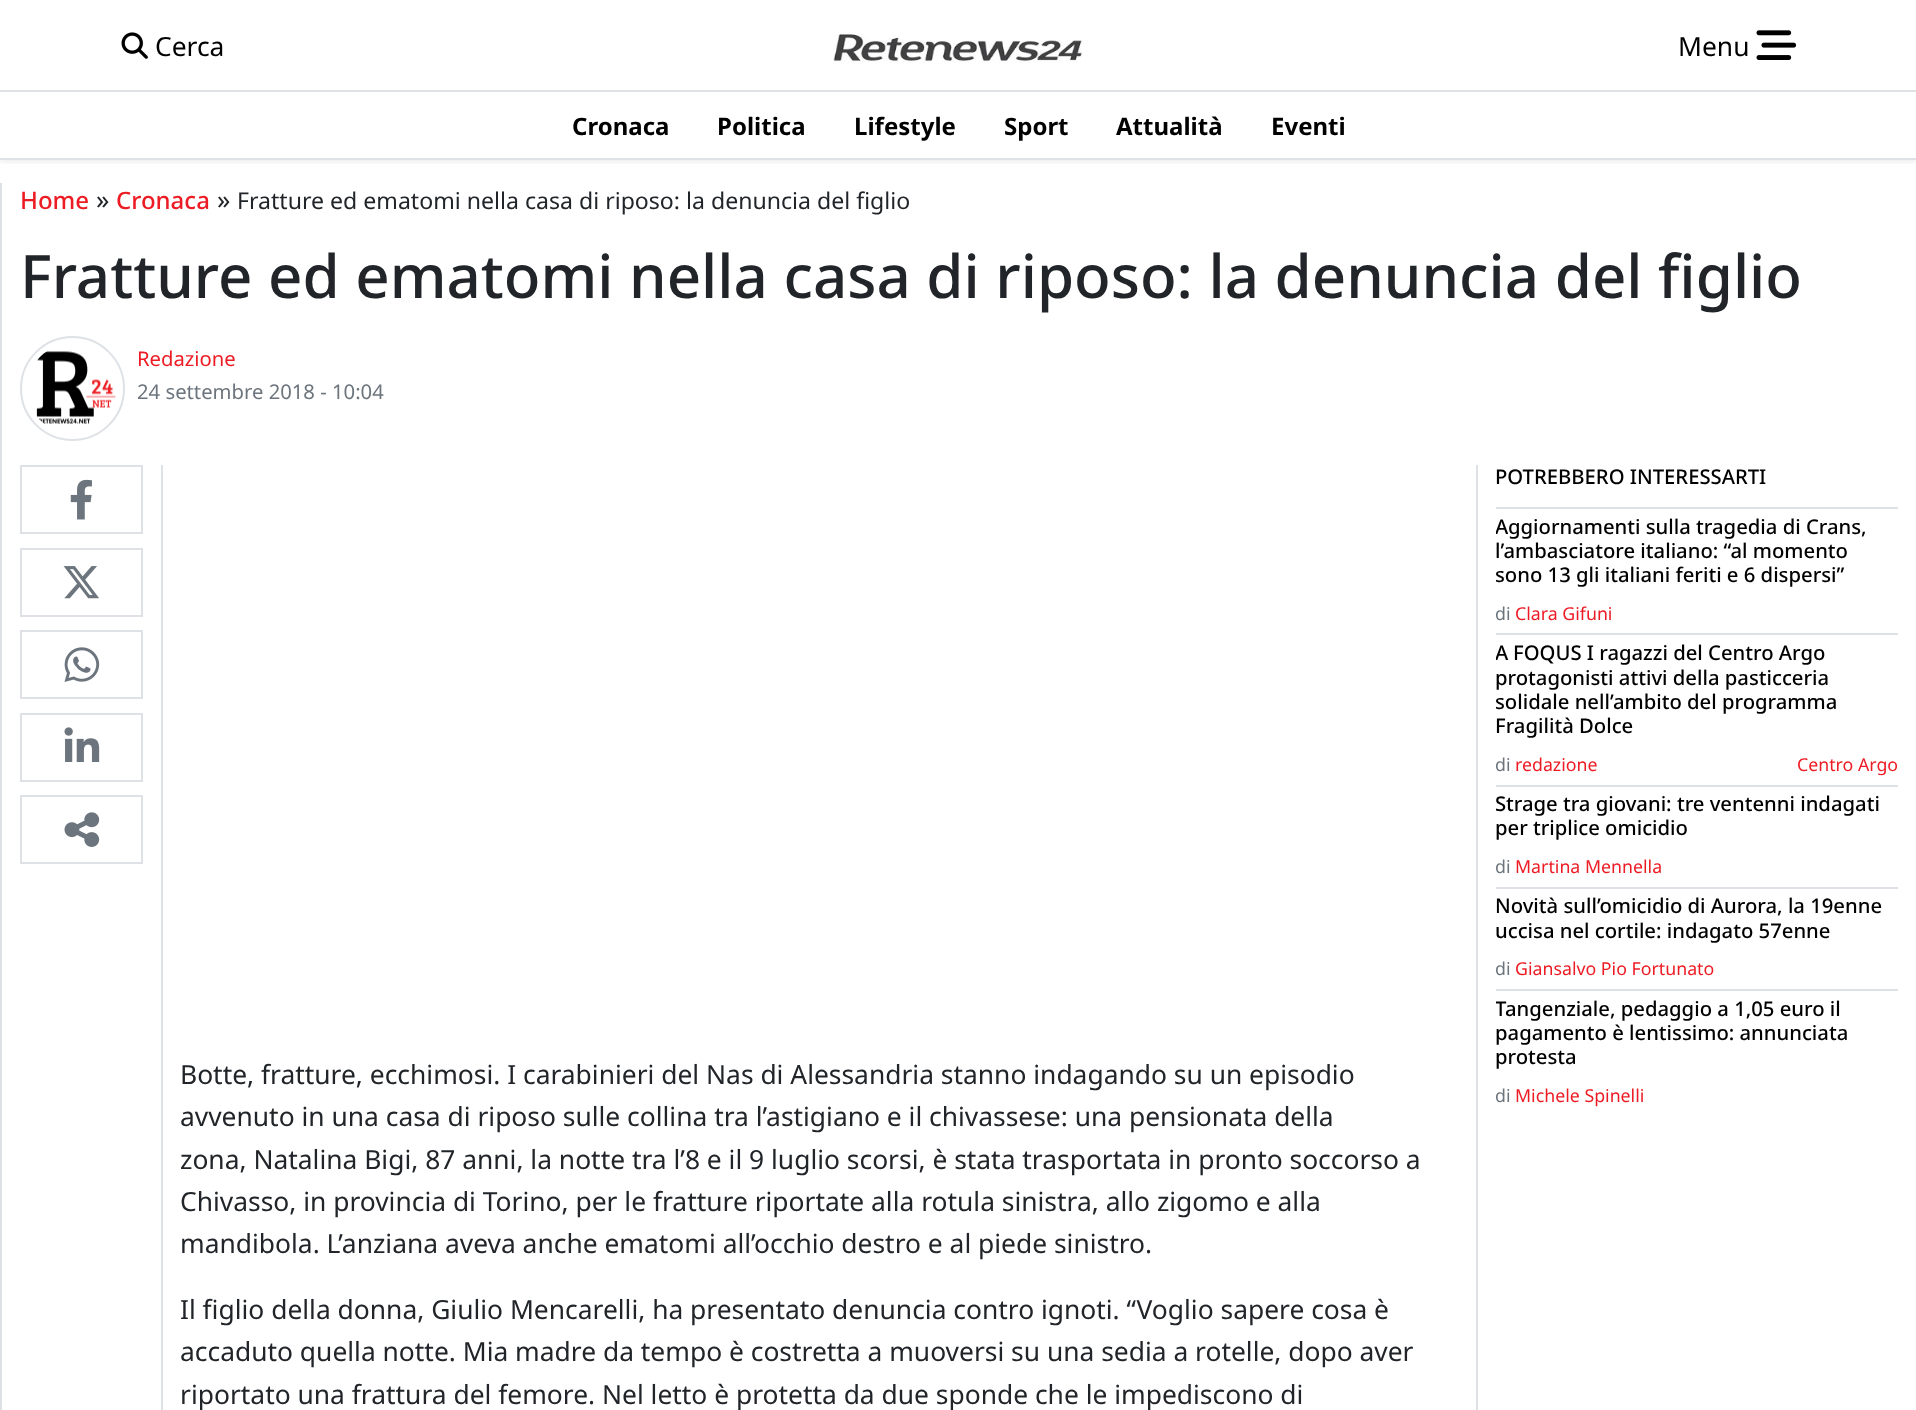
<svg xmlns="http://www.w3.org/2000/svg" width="1916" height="1410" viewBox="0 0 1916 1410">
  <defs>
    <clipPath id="clip1"><rect x="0" y="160" width="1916" height="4"/></clipPath>
    <clipPath id="clip2"><rect x="1496" y="465" width="402" height="644"/></clipPath>
  </defs>
  <rect width="100%" height="100%" fill="rgb(255,255,255)"/>
  <g clip-path="url(#clip1)">
    <rect x="0" y="95" width="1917" height="67" fill="rgba(0,0,0,0.07)" filter="blur(3px)"/>
  </g>
  <rect x="0" y="90" width="1916" height="2" fill="rgb(222,226,230)"/>
  <image x="121" y="32" width="27" height="27" href="pic1.png"/>
  <text x="155" y="56" font-family="Noto Sans" font-size="26.4" fill="rgb(0,0,0)">Cerca</text>
  <image x="833" y="34" width="250" height="29" href="pic2.png"/>
  <text x="1678" y="56" font-family="Noto Sans" font-size="26.4" fill="rgb(0,0,0)">Menu</text>
  <image x="1756" y="30" width="41" height="30" href="pic3.png"/>
  <rect x="0" y="158" width="1916" height="2" fill="rgb(222,226,230)"/>
  <g font-family="Noto Sans" font-size="24" font-weight="bold" fill="rgb(0,0,0)">
    <text x="572" y="135">Cronaca</text>
    <text x="717" y="135">Politica</text>
    <text x="854" y="135">Lifestyle</text>
    <text x="1004" y="135">Sport</text>
    <text x="1116" y="135">Attualità</text>
    <text x="1271" y="135">Eventi</text>
  </g>
  <rect x="0" y="183" width="2" height="1227" fill="rgb(222,226,230)"/>
  <text x="20" y="209" font-family="Noto Sans" font-size="24" font-weight="500" fill="rgb(237,28,36)">Home</text>
  <text x="96" y="209" font-family="Noto Sans" font-size="26.4" fill="rgb(33,37,41)">»</text>
  <text x="116" y="209" font-family="Noto Sans" font-size="24" font-weight="500" fill="rgb(237,28,36)">Cronaca</text>
  <text x="217" y="209" font-family="Noto Sans" font-size="26.4" fill="rgb(33,37,41)">»</text>
  <text x="237" y="209" font-family="Noto Sans" font-size="23.1" fill="rgb(33,37,41)">Fratture ed ematomi nella casa di riposo: la denuncia del figlio</text>
  <text x="20" y="298" font-family="Noto Sans" font-size="60" font-weight="500" fill="rgb(33,37,41)">Fratture ed ematomi nella casa di riposo: la denuncia del figlio</text>
  <circle cx="72.5" cy="388.5" r="51.5" fill="none" stroke="rgb(222,226,230)" stroke-width="2"/>
  <image x="36" y="351" width="80" height="73" href="pic4.png"/>
  <text x="137" y="366" font-family="Noto Sans" font-size="20.25" fill="rgb(237,28,36)">Redazione</text>
  <text x="137" y="399" font-family="Noto Sans" font-size="20.25" fill="rgb(108,117,125)">24 settembre 2018 - 10:04</text>
  <rect x="21" y="466" width="121" height="67" fill="none" stroke="rgb(222,226,230)" stroke-width="2"/>
  <image x="70" y="479" width="22" height="41" href="pic5.png"/>
  <rect x="21" y="549" width="121" height="67" fill="none" stroke="rgb(222,226,230)" stroke-width="2"/>
  <image x="63" y="566" width="36" height="33" href="pic6.png"/>
  <rect x="21" y="631" width="121" height="67" fill="none" stroke="rgb(222,226,230)" stroke-width="2"/>
  <image x="64" y="647" width="36" height="35" href="pic7.png"/>
  <rect x="21" y="714" width="121" height="67" fill="none" stroke="rgb(222,226,230)" stroke-width="2"/>
  <image x="64" y="727" width="36" height="35" href="pic8.png"/>
  <rect x="21" y="796" width="121" height="67" fill="none" stroke="rgb(222,226,230)" stroke-width="2"/>
  <image x="64" y="812" width="36" height="35" href="pic9.png"/>
  <text x="1495" y="484" font-family="Noto Sans" font-size="20.25" font-weight="500" fill="rgb(0,0,0)">POTREBBERO INTERESSARTI</text>
  <rect x="1496" y="507" width="402" height="2" fill="rgb(222,226,230)"/>
  <g clip-path="url(#clip2)">
    <text x="1495" y="534" font-family="Noto Sans" font-size="20.25" font-weight="500" fill="rgb(0,0,0)">A</text>
  </g>
  <g font-family="Noto Sans" font-size="20.25" font-weight="500" fill="rgb(0,0,0)">
    <text x="1508" y="534">ggiornamenti sulla tragedia di Crans,</text>
    <text x="1495" y="558">l’ambasciatore italiano: “al momento</text>
  </g>
  <g clip-path="url(#clip2)">
    <text x="1495" y="582" font-family="Noto Sans" font-size="20.25" font-weight="500" fill="rgb(0,0,0)">sono 13 gli italiani feriti e 6 dispersi”</text>
  </g>
  <text x="1495" y="620" font-family="Noto Sans" font-size="17.75" fill="rgb(108,117,125)">di</text>
  <text x="1515" y="620" font-family="Noto Sans" font-size="17.75" fill="rgb(237,28,36)">Clara Gifuni</text>
  <rect x="1496" y="633" width="402" height="2" fill="rgb(222,226,230)"/>
  <g clip-path="url(#clip2)">
    <text x="1495" y="660" font-family="Noto Sans" font-size="20.25" font-weight="500" fill="rgb(0,0,0)">A</text>
  </g>
  <g font-family="Noto Sans" font-size="20.25" font-weight="500" fill="rgb(0,0,0)">
    <text x="1513" y="660">FOQUS I ragazzi del Centro Argo</text>
    <text x="1495" y="685">protagonisti attivi della pasticceria</text>
  </g>
  <g clip-path="url(#clip2)">
    <text x="1495" y="709" font-family="Noto Sans" font-size="20.25" font-weight="500" fill="rgb(0,0,0)">solidale nell’ambito del programma</text>
  </g>
  <text x="1495" y="733" font-family="Noto Sans" font-size="20.25" font-weight="500" fill="rgb(0,0,0)">Fragilità Dolce</text>
  <text x="1495" y="771" font-family="Noto Sans" font-size="17.75" fill="rgb(108,117,125)">di</text>
  <g font-family="Noto Sans" font-size="17.75" fill="rgb(237,28,36)">
    <text x="1515" y="771">redazione</text>
    <text x="1797" y="771">Centro Argo</text>
  </g>
  <rect x="1496" y="785" width="402" height="2" fill="rgb(222,226,230)"/>
  <g clip-path="url(#clip2)">
    <text x="1495" y="811" font-family="Noto Sans" font-size="20.25" font-weight="500" fill="rgb(0,0,0)">S</text>
  </g>
  <g font-family="Noto Sans" font-size="20.25" font-weight="500" fill="rgb(0,0,0)">
    <text x="1506" y="811">trage tra giovani: tre ventenni indagati</text>
    <text x="1495" y="835">per triplice omicidio</text>
  </g>
  <text x="1495" y="873" font-family="Noto Sans" font-size="17.75" fill="rgb(108,117,125)">di</text>
  <text x="1515" y="873" font-family="Noto Sans" font-size="17.75" fill="rgb(237,28,36)">Martina Mennella</text>
  <rect x="1496" y="887" width="402" height="2" fill="rgb(222,226,230)"/>
  <g font-family="Noto Sans" font-size="20.25" font-weight="500" fill="rgb(0,0,0)">
    <text>
      <tspan x="1495" y="913">Novità sull’omicidio di Aurora, la 19enne</tspan>
      <tspan x="1495" y="938">uccisa nel cortile: indagato 57enne</tspan>
    </text>
  </g>
  <text x="1495" y="975" font-family="Noto Sans" font-size="17.75" fill="rgb(108,117,125)">di</text>
  <text x="1515" y="975" font-family="Noto Sans" font-size="17.75" fill="rgb(237,28,36)">Giansalvo Pio Fortunato</text>
  <rect x="1496" y="989" width="402" height="2" fill="rgb(222,226,230)"/>
  <g clip-path="url(#clip2)">
    <text x="1495" y="1016" font-family="Noto Sans" font-size="20.25" font-weight="500" fill="rgb(0,0,0)">T</text>
  </g>
  <g font-family="Noto Sans" font-size="20.25" font-weight="500" fill="rgb(0,0,0)">
    <text x="1505" y="1016">angenziale, pedaggio a 1,05 euro il</text>
    <text>
      <tspan x="1495" y="1040">pagamento è lentissimo: annunciata</tspan>
      <tspan x="1495" y="1064">protesta</tspan>
    </text>
  </g>
  <text x="1495" y="1102" font-family="Noto Sans" font-size="17.75" fill="rgb(108,117,125)">di</text>
  <text x="1515" y="1102" font-family="Noto Sans" font-size="17.75" fill="rgb(237,28,36)">Michele Spinelli</text>
  <rect x="1476" y="465" width="2" height="945" fill="rgb(222,226,230)"/>
  <rect x="161" y="465" width="2" height="945" fill="rgb(222,226,230)"/>
  <g font-family="Noto Sans" font-size="26.4" fill="rgb(33,37,41)">
    <text>
      <tspan x="180" y="1084">Botte, fratture, ecchimosi. I carabinieri del Nas di Alessandria stanno indagando su un episodio</tspan>
      <tspan x="180" y="1126">avvenuto in una casa di riposo sulle collina tra l’astigiano e il chivassese: una pensionata della</tspan>
      <tspan x="180" y="1169">zona, Natalina Bigi, 87 anni, la notte tra l’8 e il 9 luglio scorsi, è stata trasportata in pronto soccorso a</tspan>
      <tspan x="180" y="1211">Chivasso, in provincia di Torino, per le fratture riportate alla rotula sinistra, allo zigomo e alla</tspan>
      <tspan x="180" y="1253">mandibola. L’anziana aveva anche ematomi all’occhio destro e al piede sinistro.</tspan>
    </text>
    <text>
      <tspan x="180" y="1319">Il figlio della donna, Giulio Mencarelli, ha presentato denuncia contro ignoti. “Voglio sapere cosa è</tspan>
      <tspan x="180" y="1361">accaduto quella notte. Mia madre da tempo è costretta a muoversi su una sedia a rotelle, dopo aver</tspan>
      <tspan x="180" y="1404">riportato una frattura del femore. Nel letto è protetta da due sponde che le impediscono di</tspan>
    </text>
  </g>
</svg>
